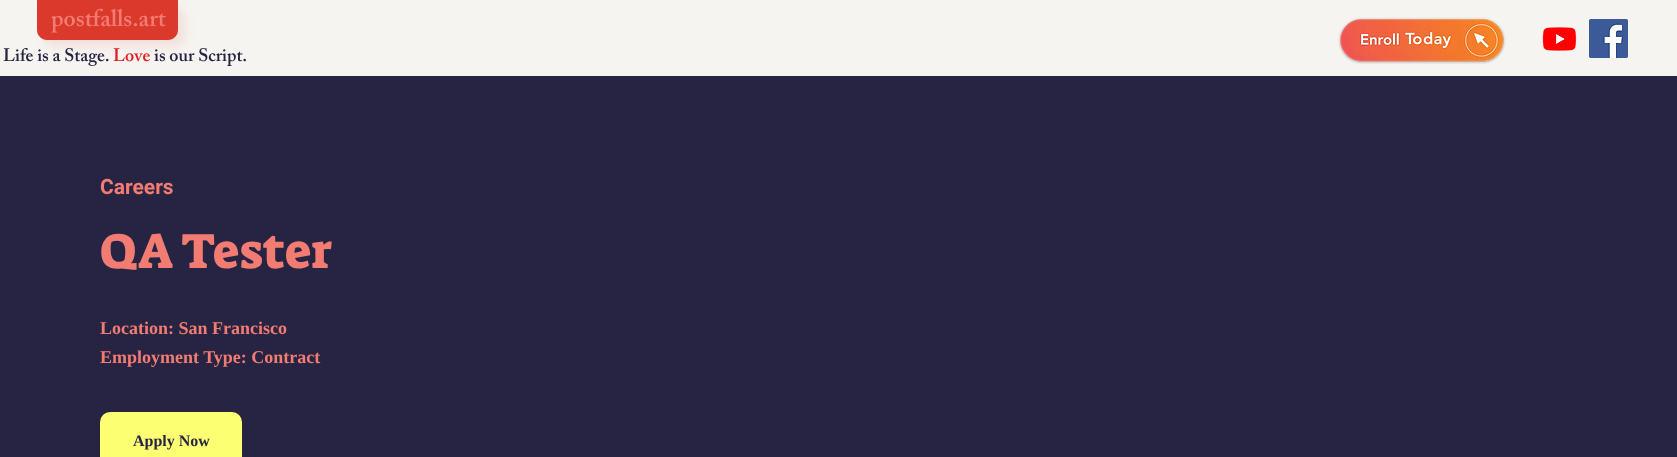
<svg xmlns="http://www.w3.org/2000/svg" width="1677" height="457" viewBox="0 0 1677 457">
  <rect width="100%" height="100%" fill="rgb(39,36,67)"/>
  <rect x="0" y="0" width="1677" height="76" fill="rgb(246,244,240)"/>
  <image x="1338" y="17" width="168" height="47" href="pic1.png"/>
  <image x="1542" y="27" width="35" height="24" href="pic2.png"/>
  <image x="1589" y="19" width="39" height="39" href="pic3.png"/>
  <rect x="44" y="7" width="141" height="40" rx="10" fill="rgba(218,57,43,0.1)" filter="blur(5px)"/>
  <path d="M37 0H178V30C178 35.5 173.5 40 168 40H47C41.5 40 37 35.5 37 30Z" fill="rgb(218,57,43)"/>
  <text x="51" y="26" font-family="'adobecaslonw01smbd'" font-size="24" font-weight="600" fill="rgb(242,124,114)">postfalls.art</text>
  <text x="3" y="61" font-family="'adobecaslonw01smbd'" font-size="18" font-weight="600" fill="rgb(39,36,67)">Life is a Stage.</text>
  <text x="113" y="61" font-family="'adobecaslonw01smbd'" font-size="18" font-weight="600" fill="rgb(226,28,33)">Love</text>
  <text x="154" y="61" font-family="'adobecaslonw01smbd'" font-size="18" font-weight="600" fill="rgb(39,36,67)">is our Script.</text>
  <text x="100" y="194" font-family="Roboto" font-size="21" font-weight="bold" fill="rgb(242,124,114)">Careers</text>
  <text x="100" y="268" font-family="Suez One" font-size="50" fill="rgb(242,124,114)">QA Tester</text>
  <g font-family="Liberation Serif" font-size="18" font-weight="bold" fill="rgb(242,124,114)">
    <text>
      <tspan x="100" y="334">Location: San Francisco</tspan>
      <tspan x="100" y="363">Employment Type: Contract</tspan>
    </text>
  </g>
  <rect x="100" y="412" width="142" height="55" rx="10" fill="rgb(252,255,114)"/>
  <text x="133" y="446" font-family="Liberation Serif" font-size="16" font-weight="bold" fill="rgb(39,36,67)">Apply Now</text>
</svg>
